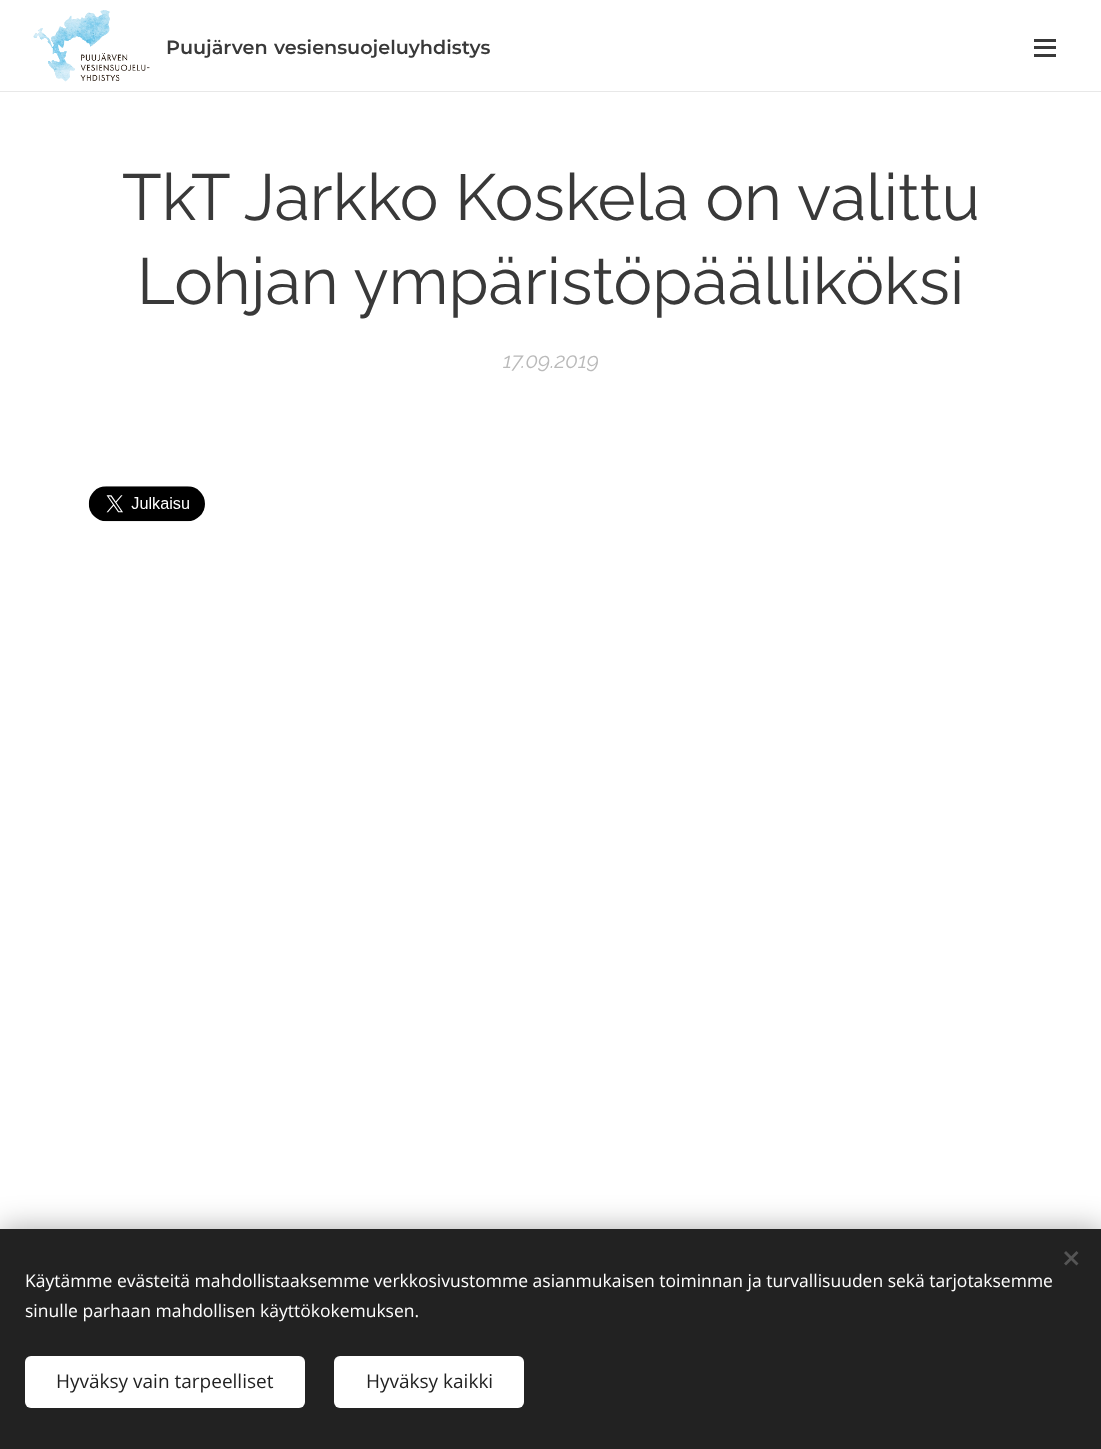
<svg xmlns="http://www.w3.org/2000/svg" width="1101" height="1449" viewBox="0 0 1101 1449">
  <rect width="100%" height="100%" fill="rgb(255,255,255)"/>
  <image x="33" y="10" width="117" height="72" href="pic1.png"/>
  <g font-family="Montserrat" font-size="19.2" font-weight="600" fill="rgb(57,57,57)">
    <text x="166" y="54">Puujärven</text>
    <text x="274" y="54">vesiensuojeluyhdistys</text>
  </g>
  <rect x="1034" y="46" width="22" height="3" fill="rgb(57,57,57)"/>
  <rect x="1034" y="39" width="22" height="3" fill="rgb(57,57,57)"/>
  <rect x="1034" y="54" width="22" height="3" fill="rgb(57,57,57)"/>
  <rect x="0" y="91" width="1101" height="1" fill="rgb(232,232,232)"/>
  <g font-family="Raleway" font-size="65" fill="rgb(57,57,57)">
    <text x="122" y="220">TkT Jarkko Koskela on valittu</text>
    <text x="137" y="304">Lohjan ympäristöpäälliköksi</text>
  </g>
  <text x="503" y="368" font-family="Raleway" font-size="21.5" font-style="italic" fill="rgb(186,186,186)">17.09.2019</text>
  <image x="88" y="486" width="117" height="36" href="pic2.png"/>
  <rect x="0" y="1229" width="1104" height="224" fill="rgba(0,0,0,0.33)" filter="blur(15.5px)"/>
  <rect x="0" y="1229" width="1101" height="220" fill="rgb(34,34,34)"/>
  <path d="M1064 1263.5L1076.5 1251L1078.5 1253L1066 1265.5Z" fill="rgb(85,85,85)"/>
  <path d="M1066 1251L1078.5 1263.5L1076.5 1265.5L1064 1253Z" fill="rgb(85,85,85)"/>
  <g font-family="Open Sans" font-size="17.5" fill="rgb(255,255,255)">
    <text>
      <tspan x="25" y="1287">Käytämme evästeitä mahdollistaaksemme verkkosivustomme asianmukaisen toiminnan ja turvallisuuden sekä tarjotaksemme</tspan>
      <tspan x="25" y="1317">sinulle parhaan mahdollisen käyttökokemuksen.</tspan>
    </text>
  </g>
  <rect x="25" y="1356" width="280" height="52" rx="6" fill="rgb(255,255,255)"/>
  <text x="56" y="1388" font-family="Open Sans" font-size="19" fill="rgb(34,34,34)">Hyväksy vain tarpeelliset</text>
  <rect x="334" y="1356" width="190" height="52" rx="6" fill="rgb(255,255,255)"/>
  <text x="366" y="1388" font-family="Open Sans" font-size="19" fill="rgb(34,34,34)">Hyväksy kaikki</text>
</svg>
